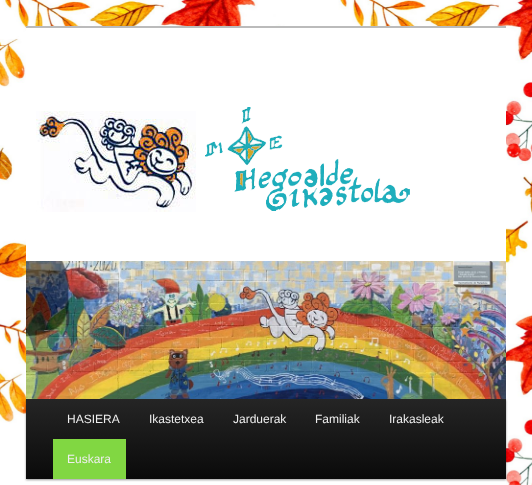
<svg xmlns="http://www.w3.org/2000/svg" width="532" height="485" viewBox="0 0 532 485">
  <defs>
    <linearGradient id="g1" gradientUnits="userSpaceOnUse" x1="266" y1="399" x2="266" y2="479"><stop offset="0" stop-color="rgb(37,37,37)"/><stop offset="1" stop-color="rgb(10,10,10)"/></linearGradient>
  </defs>
  <rect width="100%" height="100%" fill="rgb(255,255,255)"/>
  <image x="0" y="0" width="532" height="485" href="pic1.png"/>
  <rect x="26" y="28" width="480" height="457" fill="rgb(255,255,255)"/>
  <rect x="26" y="26" width="480" height="2" fill="rgb(187,187,187)"/>
  <image x="36" y="107" width="374" height="105" href="pic2.png"/>
  <rect x="26" y="400" width="480" height="80" fill="rgba(0,0,0,0.4)" filter="blur(1px)"/>
  <image x="26" y="261" width="480" height="138" href="pic3.png"/>
  <rect x="26" y="399" width="480" height="80" fill="url(#g1)"/>
  <g font-family="Liberation Sans" font-size="12" fill="rgb(238,238,238)">
    <text x="67" y="423">HASIERA</text>
    <text x="149" y="423">Ikastetxea</text>
    <text x="233" y="423">Jarduerak</text>
    <text x="315" y="423">Familiak</text>
    <text x="389" y="423">Irakasleak</text>
  </g>
  <rect x="53" y="439" width="73" height="40" fill="rgb(129,215,66)"/>
  <text x="67" y="463" font-family="Liberation Sans" font-size="12" fill="rgb(238,238,238)">Euskara</text>
</svg>
